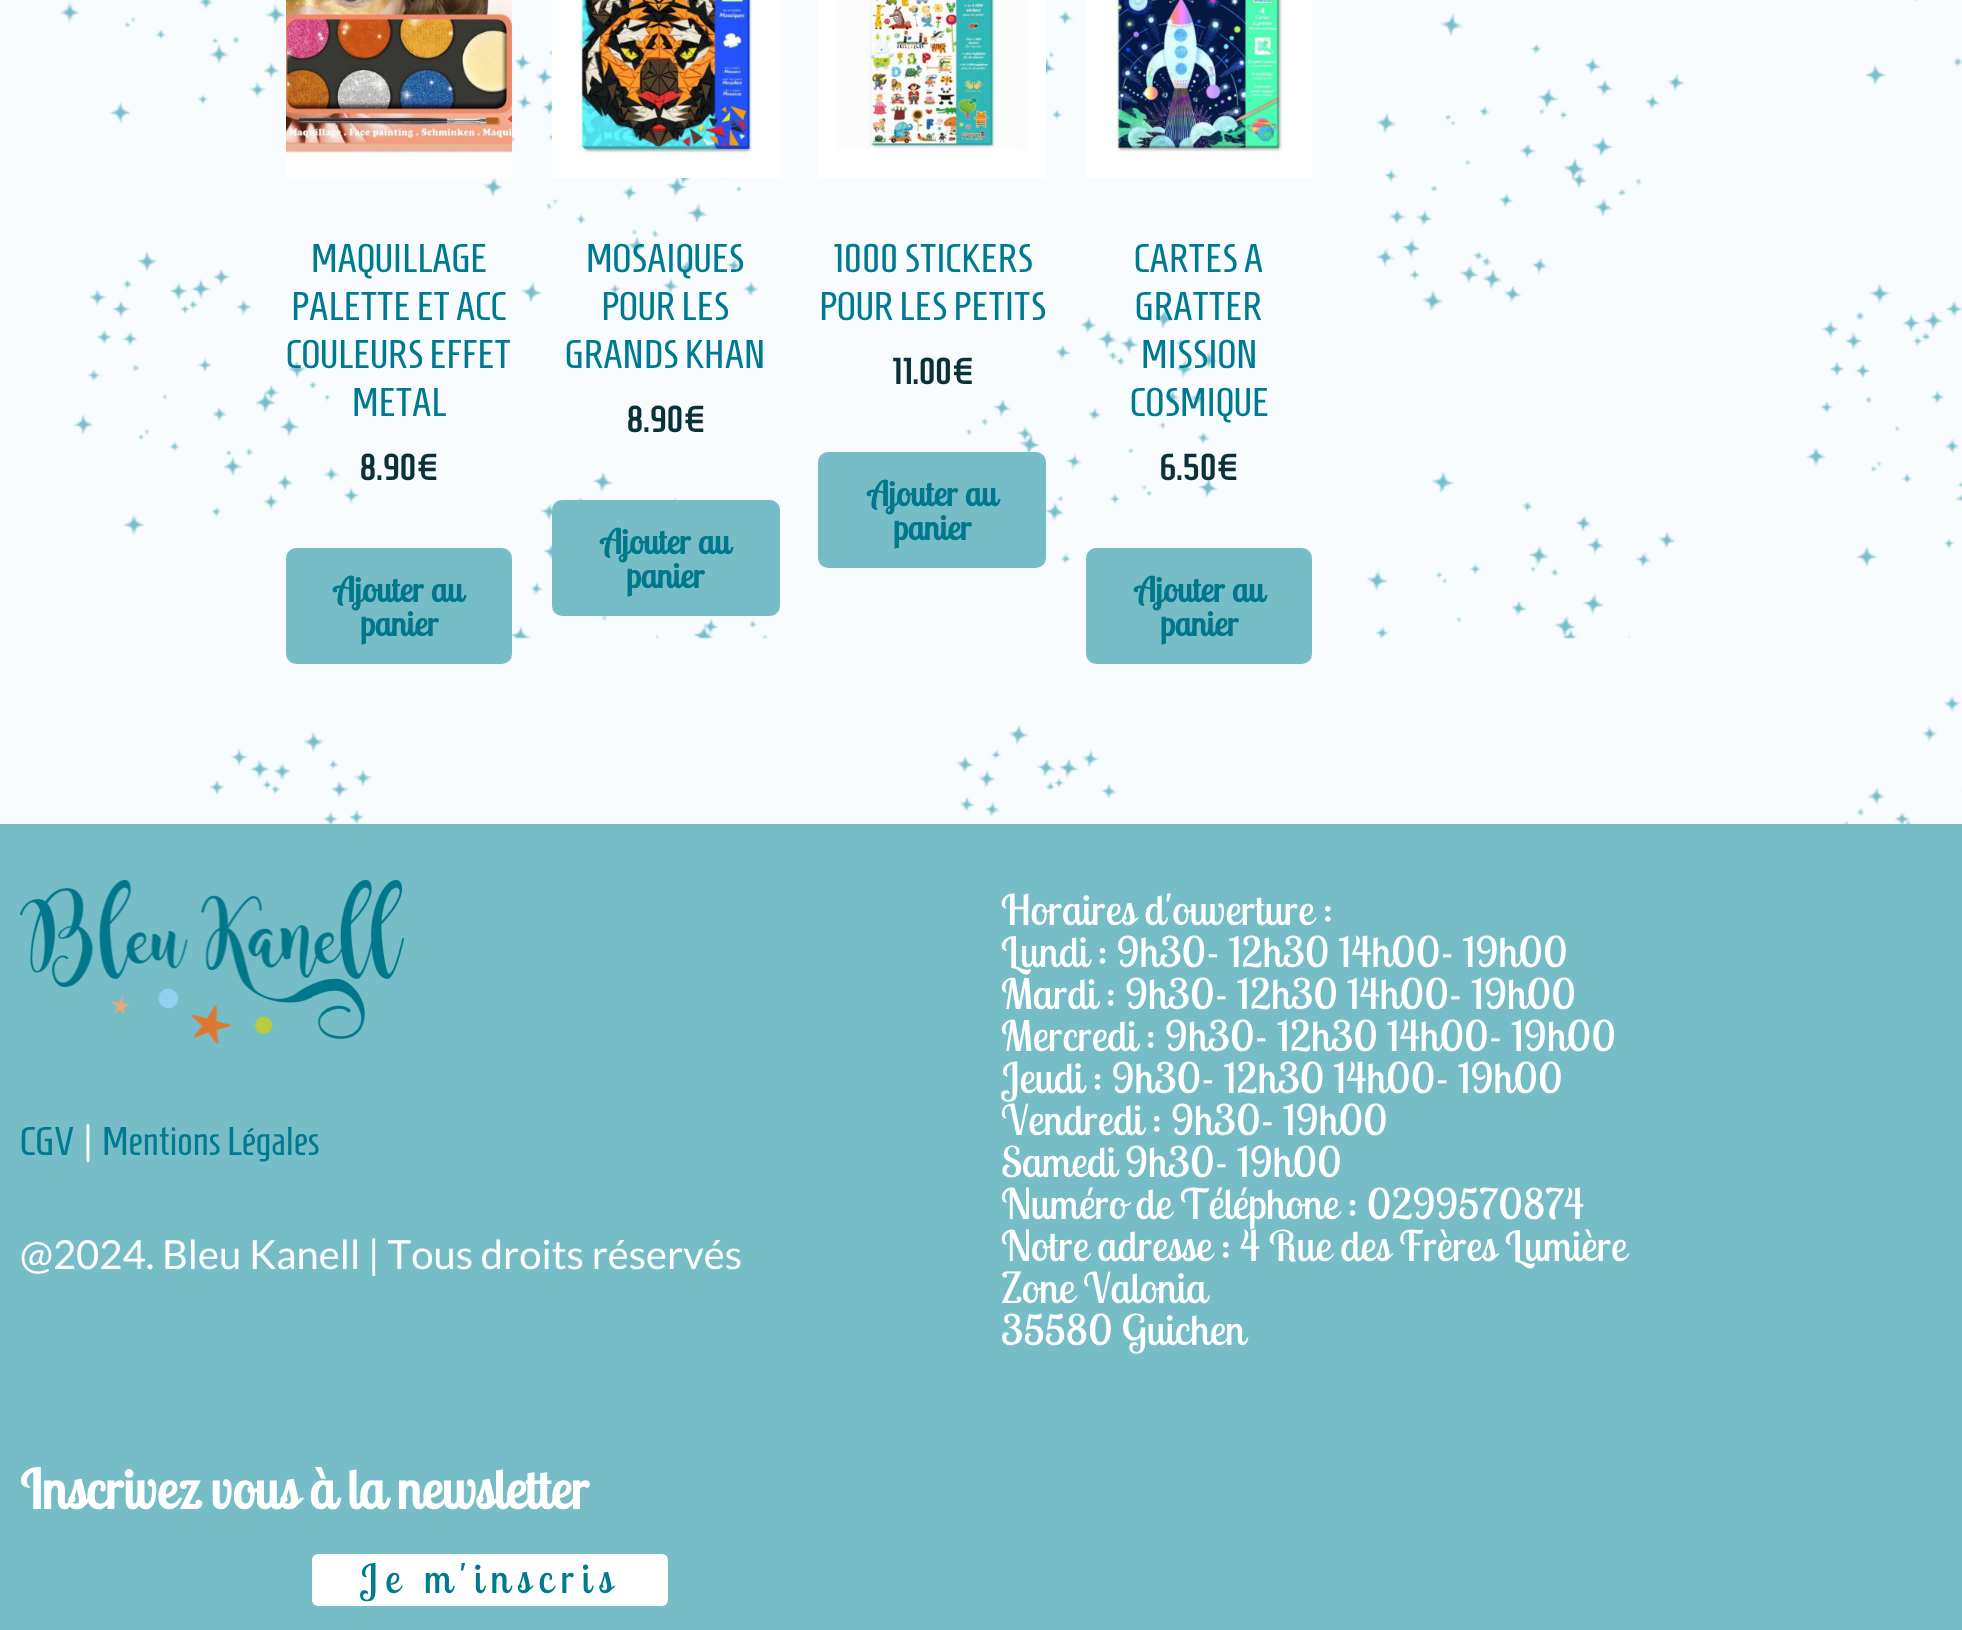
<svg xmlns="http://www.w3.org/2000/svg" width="1962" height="1630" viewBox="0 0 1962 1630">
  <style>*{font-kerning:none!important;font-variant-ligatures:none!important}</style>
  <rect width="100%" height="100%" fill="rgb(255,255,255)"/>
  <image x="0" y="0" width="1962" height="824" href="pic1.png"/>
  <image x="286" y="0" width="226" height="178" href="pic2.png"/>
  <g font-family="Homenaje" font-size="40" fill="rgb(0,122,144)">
    <text x="311" y="272">MAQUILLAGE</text>
    <text x="291" y="320">PALETTE ET ACC</text>
    <text x="286" y="368">COULEURS EFFET</text>
    <text x="352" y="416">METAL</text>
  </g>
  <text x="359" y="480" font-family="Homenaje" font-size="36" font-weight="bold" fill="rgb(10,48,58)">8.90€</text>
  <rect x="286" y="548" width="226" height="116" rx="10" fill="rgb(118,189,200)"/>
  <g font-family="Lobster Two" font-size="34" font-weight="bold" fill="rgb(0,119,138)">
    <text x="334" y="602">Ajouter au</text>
    <text x="360" y="636">panier</text>
  </g>
  <image x="552" y="0" width="228" height="178" href="pic3.png"/>
  <g font-family="Homenaje" font-size="40" fill="rgb(0,122,144)">
    <text x="586" y="272">MOSAIQUES</text>
    <text x="601" y="320">POUR LES</text>
    <text x="565" y="368">GRANDS KHAN</text>
  </g>
  <text x="626" y="432" font-family="Homenaje" font-size="36" font-weight="bold" fill="rgb(10,48,58)">8.90€</text>
  <rect x="552" y="500" width="228" height="116" rx="10" fill="rgb(118,189,200)"/>
  <g font-family="Lobster Two" font-size="34" font-weight="bold" fill="rgb(0,119,138)">
    <text x="601" y="554">Ajouter au</text>
    <text x="626" y="588">panier</text>
  </g>
  <image x="818" y="0" width="228" height="178" href="pic4.png"/>
  <g font-family="Homenaje" font-size="40" fill="rgb(0,122,144)">
    <text x="832" y="272">1000 STICKERS</text>
    <text x="819" y="320">POUR LES PETITS</text>
  </g>
  <text x="891" y="384" font-family="Homenaje" font-size="36" font-weight="bold" fill="rgb(10,48,58)">11.00€</text>
  <rect x="818" y="452" width="228" height="116" rx="10" fill="rgb(118,189,200)"/>
  <g font-family="Lobster Two" font-size="34" font-weight="bold" fill="rgb(0,119,138)">
    <text x="868" y="506">Ajouter au</text>
    <text x="893" y="540">panier</text>
  </g>
  <image x="1086" y="0" width="226" height="178" href="pic5.png"/>
  <g font-family="Homenaje" font-size="40" fill="rgb(0,122,144)">
    <text x="1134" y="272">CARTES A</text>
    <text x="1135" y="320">GRATTER</text>
    <text x="1141" y="368">MISSION</text>
    <text x="1130" y="416">COSMIQUE</text>
  </g>
  <text x="1159" y="480" font-family="Homenaje" font-size="36" font-weight="bold" fill="rgb(10,48,58)">6.50€</text>
  <rect x="1086" y="548" width="226" height="116" rx="10" fill="rgb(118,189,200)"/>
  <g font-family="Lobster Two" font-size="34" font-weight="bold" fill="rgb(0,119,138)">
    <text x="1135" y="602">Ajouter au</text>
    <text x="1160" y="636">panier</text>
  </g>
  <rect x="0" y="824" width="1962" height="806" fill="rgb(118,189,200)"/>
  <image x="20" y="880" width="384" height="164" href="pic6.png"/>
  <text x="20" y="1155" font-family="Homenaje" font-size="40" fill="rgb(0,122,144)">CGV</text>
  <text x="82" y="1155" font-family="Lato" font-size="40" fill="rgb(255,255,255)">|</text>
  <text x="102" y="1155" font-family="Homenaje" font-size="40" fill="rgb(0,122,144)">Mentions Légales</text>
  <text x="20" y="1269" font-family="Lato" font-size="40" fill="rgb(255,255,255)">@2024. Bleu Kanell | Tous droits réservés</text>
  <g font-family="Lobster Two" font-size="42" fill="rgb(255,255,255)">
    <text>
      <tspan x="1001" y="925">Horaires d'ouverture :</tspan>
      <tspan x="1001" y="967">Lundi : 9h30- 12h30 14h00- 19h00</tspan>
      <tspan x="1001" y="1009">Mardi : 9h30- 12h30 14h00- 19h00</tspan>
      <tspan x="1001" y="1051">Mercredi : 9h30- 12h30 14h00- 19h00</tspan>
      <tspan x="1001" y="1093">Jeudi : 9h30- 12h30 14h00- 19h00</tspan>
      <tspan x="1001" y="1135">Vendredi : 9h30- 19h00</tspan>
      <tspan x="1001" y="1177">Samedi 9h30- 19h00</tspan>
      <tspan x="1001" y="1219">Numéro de Téléphone : 0299570874</tspan>
      <tspan x="1001" y="1261">Notre adresse : 4 Rue des Frères Lumière</tspan>
      <tspan x="1001" y="1303">Zone Valonia</tspan>
      <tspan x="1001" y="1345">35580 Guichen</tspan>
    </text>
  </g>
  <text x="20" y="1509" font-family="Lobster Two" font-size="54" font-weight="bold" fill="rgb(255,255,255)">Inscrivez vous à la newsletter</text>
  <rect x="312" y="1554" width="356" height="52" rx="6" fill="rgb(255,255,255)"/>
  <text x="360" y="1593" font-family="Lobster Two" font-size="40" letter-spacing="7.75" fill="rgb(0,122,144)">Je m'inscris</text>
</svg>
